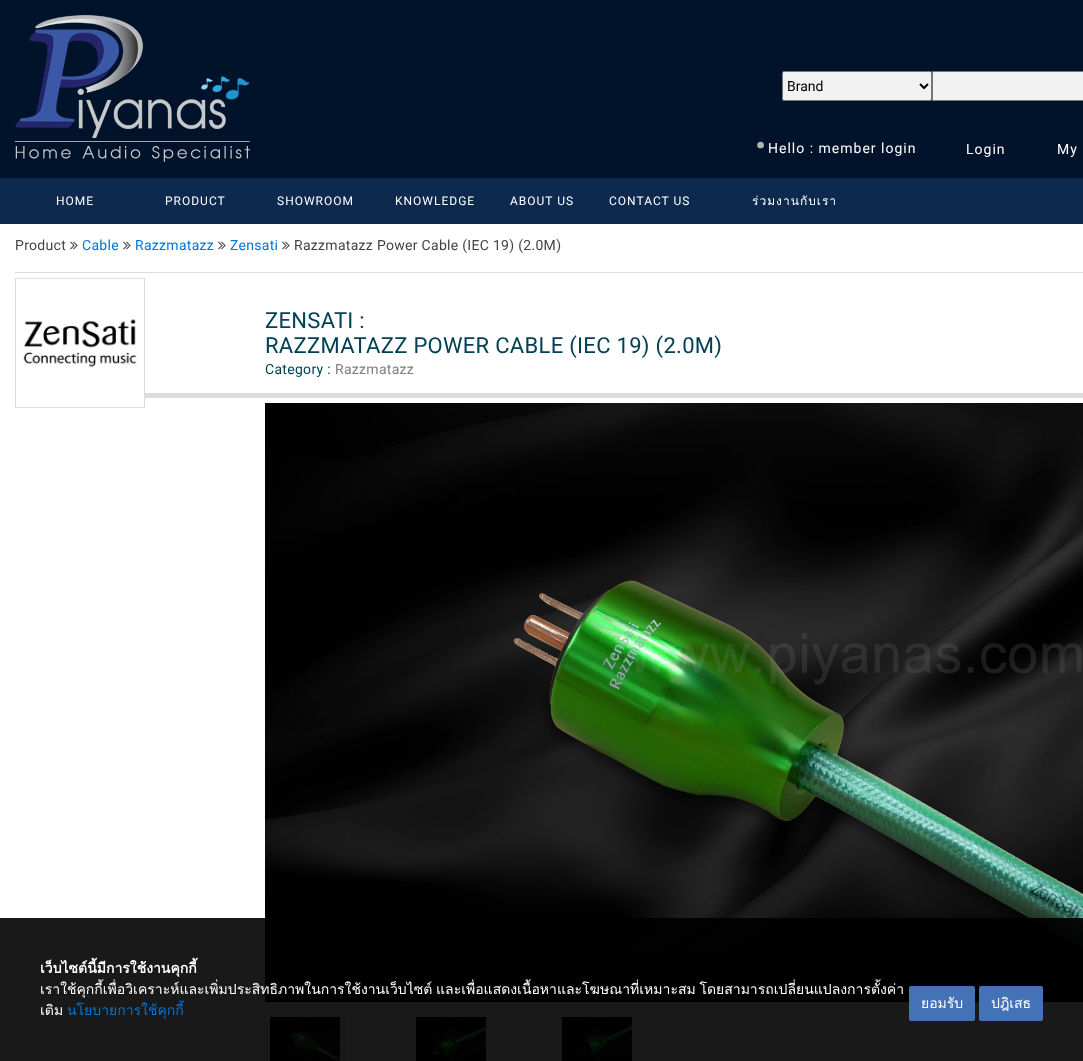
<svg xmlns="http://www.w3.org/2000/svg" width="1083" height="1061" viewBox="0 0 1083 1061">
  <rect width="100%" height="100%" fill="rgb(255,255,255)"/>
  <rect x="0" y="0" width="1083" height="178" fill="rgb(1,19,43)"/>
  <image x="15" y="15" width="235" height="147" href="pic1.png"/>
  <rect x="782.5" y="71.5" width="149" height="29" rx="1.5" fill="rgb(242,242,242)" stroke="rgb(118,118,118)"/>
  <path d="M920 84L924 88L928 84" fill="none" stroke="rgb(0,0,0)" stroke-width="2"/>
  <text x="787" y="91" font-family="Roboto" font-size="14" fill="rgb(0,0,0)">Brand</text>
  <rect x="932.5" y="71.5" width="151" height="29" fill="rgb(242,242,242)" stroke="rgb(118,118,118)"/>
  <text x="753" y="148" font-family="Roboto" font-size="60" letter-spacing="1" fill="rgb(178,178,178)">.</text>
  <g font-family="Roboto" font-size="14" letter-spacing="1" fill="rgb(255,255,255)">
    <text x="768" y="153">Hello : member login</text>
    <text x="966" y="154">Login</text>
    <text x="1057" y="154">My</text>
  </g>
  <rect x="0" y="178" width="1083" height="46" fill="rgb(13,41,78)"/>
  <g font-family="Roboto" font-size="12" letter-spacing="1" fill="rgb(255,255,255)">
    <text x="56" y="205">HOME</text>
    <text x="165" y="205">PRODUCT</text>
    <text x="277" y="205">SHOWROOM</text>
    <text x="395" y="205">KNOWLEDGE</text>
    <text x="510" y="205">ABOUT US</text>
    <text x="609" y="205">CONTACT US</text>
  </g>
  <text x="752" y="205" font-family="Loma" font-size="12" letter-spacing="1" fill="rgb(255,255,255)">ร่วมงานกับเรา</text>
  <text x="15" y="250" font-family="Roboto" font-size="14" letter-spacing="0.3" fill="rgb(68,68,68)">Product</text>
  <image x="70" y="241" width="8" height="9" href="pic2.png"/>
  <text x="82" y="250" font-family="Roboto" font-size="14" letter-spacing="0.3" fill="rgb(2,117,216)">Cable</text>
  <image x="123" y="241" width="8" height="9" href="pic2.png"/>
  <text x="135" y="250" font-family="Roboto" font-size="14" letter-spacing="0.3" fill="rgb(2,117,216)">Razzmatazz</text>
  <image x="218" y="241" width="8" height="9" href="pic2.png"/>
  <text x="230" y="250" font-family="Roboto" font-size="14" letter-spacing="0.3" fill="rgb(2,117,216)">Zensati</text>
  <image x="282" y="241" width="8" height="9" href="pic2.png"/>
  <text x="294" y="250" font-family="Roboto" font-size="14" letter-spacing="0.3" fill="rgb(68,68,68)">Razzmatazz Power Cable (IEC 19) (2.0M)</text>
  <rect x="15" y="272" width="1068" height="1" fill="rgb(221,221,221)"/>
  <rect x="15.5" y="278.5" width="129" height="129" fill="none" stroke="rgb(221,221,221)"/>
  <image x="23" y="319" width="114" height="48" href="pic3.png"/>
  <g font-family="Roboto" font-size="22" letter-spacing="0.3" fill="rgb(0,65,85)">
    <text>
      <tspan x="265" y="328">ZENSATI :</tspan>
      <tspan x="265" y="353">RAZZMATAZZ POWER CABLE (IEC 19) (2.0M)</tspan>
    </text>
  </g>
  <text x="265" y="374" font-family="Roboto" font-size="14" letter-spacing="0.3" fill="rgb(0,65,85)">Category :</text>
  <text x="335" y="374" font-family="Roboto" font-size="14" letter-spacing="0.3" fill="rgb(126,126,126)">Razzmatazz</text>
  <rect x="145" y="393" width="938" height="5" fill="rgb(221,221,221)"/>
  <image x="265" y="403" width="818" height="599" href="pic4.png"/>
  <rect x="265.5" y="1012.5" width="79" height="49" fill="none" stroke="rgb(221,221,221)"/>
  <image x="270" y="1017" width="70" height="44" href="pic5.png"/>
  <rect x="411.5" y="1012.5" width="79" height="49" fill="none" stroke="rgb(221,221,221)"/>
  <image x="416" y="1017" width="70" height="44" href="pic6.png"/>
  <rect x="557.5" y="1012.5" width="79" height="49" fill="none" stroke="rgb(221,221,221)"/>
  <image x="562" y="1017" width="70" height="44" href="pic7.png"/>
  <rect x="0" y="918" width="1083" height="143" fill="rgba(0,0,0,0.9)"/>
  <text x="40" y="973" font-family="Loma" font-size="14" font-weight="bold" fill="rgb(255,255,255)">เว็บไซต์นี้มีการใช้งานคุกกี้</text>
  <g font-family="Loma" font-size="14" fill="rgb(255,255,255)">
    <text>
      <tspan x="40" y="994" word-spacing="-1">เราใช้คุกกี้เพื่อวิเคราะห์และเพิ่มประสิทธิภาพในการใช้งานเว็บไซต์ และเพื่อแสดงเนื้อหาและโฆษณาที่เหมาะสม โดยสามารถเปลี่ยนแปลงการตั้งค่า</tspan>
      <tspan x="40" y="1015">เติม</tspan>
    </text>
  </g>
  <text x="67" y="1015" font-family="Loma" font-size="14" fill="rgb(2,117,216)">นโยบายการใช้คุกกี้</text>
  <rect x="910" y="987" width="64" height="33" rx="1" fill="rgb(67,115,182)" stroke="rgb(67,115,182)" stroke-width="2"/>
  <text x="921" y="1008" font-family="Loma" font-size="14" fill="rgb(255,255,255)">ยอมรับ</text>
  <rect x="980" y="987" width="62" height="33" rx="1" fill="rgb(67,115,182)" stroke="rgb(67,115,182)" stroke-width="2"/>
  <text x="991" y="1008" font-family="Loma" font-size="14" fill="rgb(255,255,255)">ปฎิเสธ</text>
</svg>
